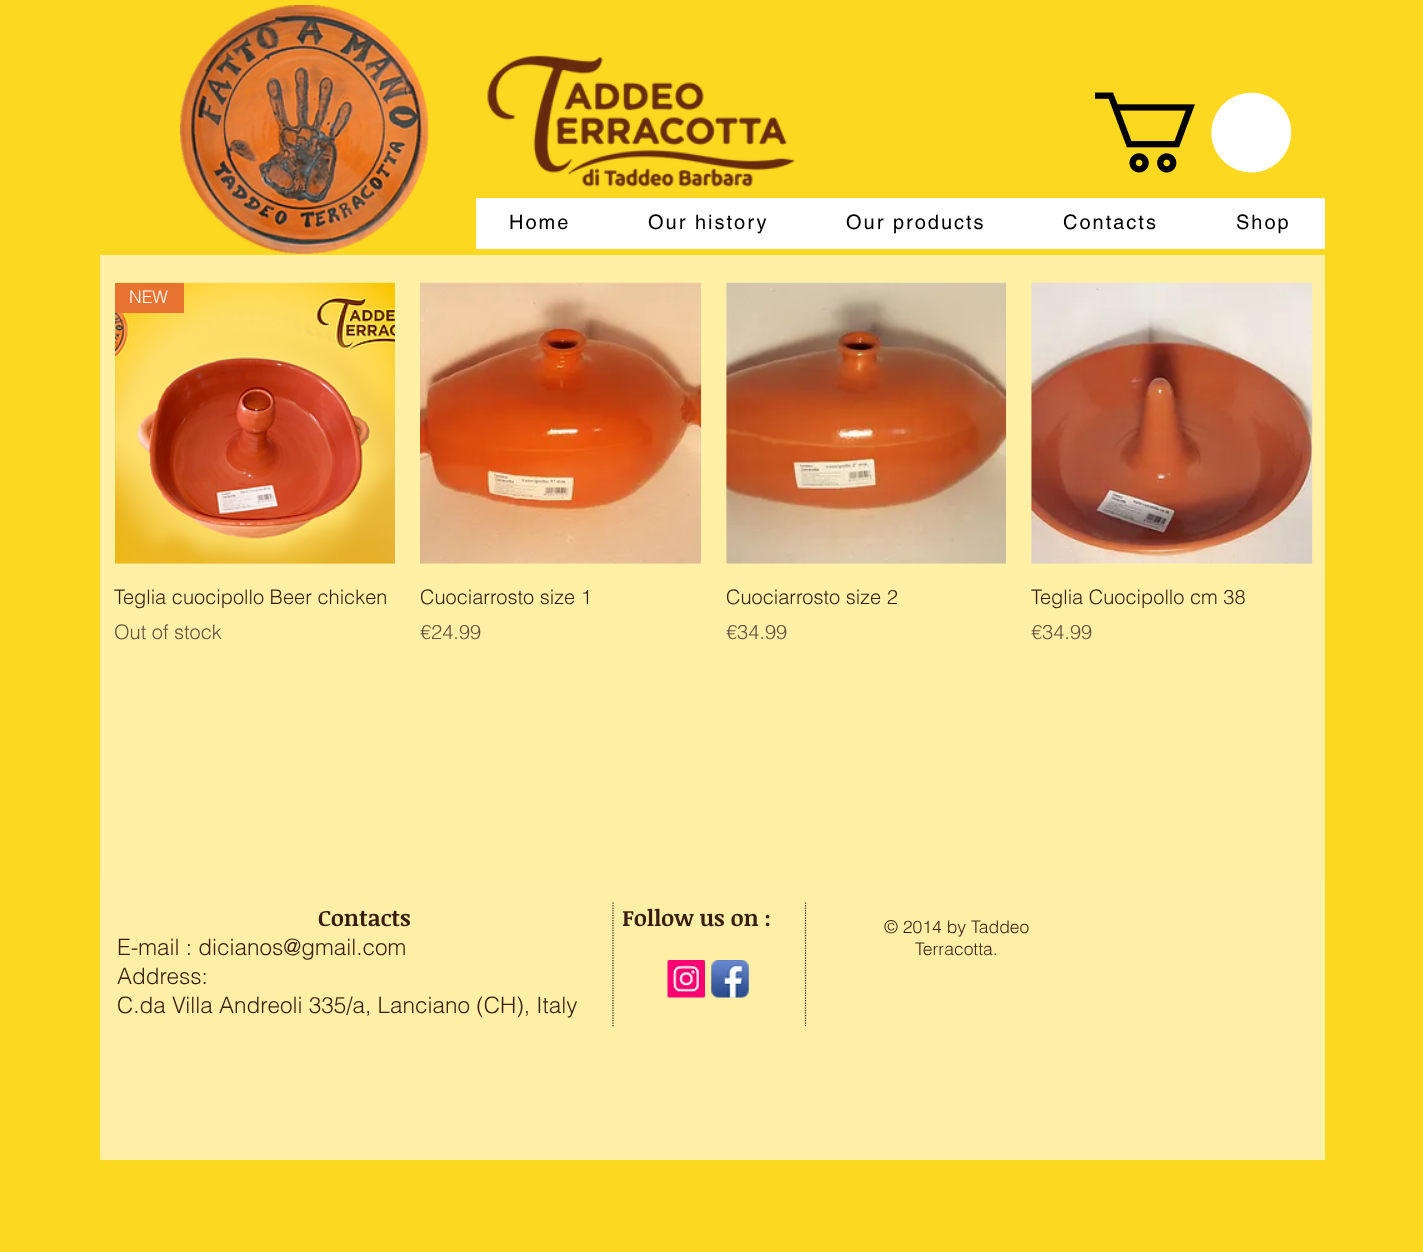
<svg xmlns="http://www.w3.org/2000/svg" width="1423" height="1252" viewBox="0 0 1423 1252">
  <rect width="100%" height="100%" fill="rgb(252,217,32)"/>
  <image x="180" y="5" width="249" height="249" href="pic1.png"/>
  <image x="487" y="55" width="309" height="132" href="pic2.png"/>
  <image x="1095" y="92" width="197" height="81" href="pic3.png"/>
  <rect x="476" y="198" width="849" height="51" fill="rgb(255,255,255)"/>
  <g font-family="helvetica" font-size="20" letter-spacing="2" fill="rgb(0,0,0)">
    <text x="509" y="229">Home</text>
    <text x="648" y="229">Our history</text>
    <text x="846" y="229">Our products</text>
    <text x="1063" y="229">Contacts</text>
    <text x="1236" y="229">Shop</text>
  </g>
  <rect x="100" y="255" width="1225" height="625" fill="rgb(255,240,166)"/>
  <image x="115" y="282" width="280" height="282" href="pic4.png"/>
  <rect x="115" y="283" width="69" height="30" fill="rgb(232,115,48)"/>
  <text x="129" y="303" font-family="helvetica" font-size="17.5" font-weight="300" fill="rgb(255,255,255)">NEW</text>
  <text x="114" y="604" font-family="helvetica" font-size="20" font-weight="300" fill="rgb(58,28,19)">Teglia cuocipollo Beer chicken</text>
  <text x="114" y="639" font-family="helvetica" font-size="20" font-weight="300" fill="rgb(103,79,64)">Out of stock</text>
  <image x="420" y="282" width="282" height="282" href="pic5.png"/>
  <text x="420" y="604" font-family="helvetica" font-size="20" font-weight="300" fill="rgb(58,28,19)">Cuociarrosto size 1</text>
  <text x="420" y="639" font-family="helvetica" font-size="20" font-weight="300" fill="rgb(103,79,64)">€24.99</text>
  <image x="726" y="282" width="281" height="282" href="pic6.png"/>
  <text x="726" y="604" font-family="helvetica" font-size="20" font-weight="300" fill="rgb(58,28,19)">Cuociarrosto size 2</text>
  <text x="726" y="639" font-family="helvetica" font-size="20" font-weight="300" fill="rgb(103,79,64)">€34.99</text>
  <image x="1031" y="282" width="282" height="282" href="pic7.png"/>
  <text x="1031" y="604" font-family="helvetica" font-size="20" font-weight="300" fill="rgb(58,28,19)">Teglia Cuocipollo cm 38</text>
  <text x="1031" y="639" font-family="helvetica" font-size="20" font-weight="300" fill="rgb(103,79,64)">€34.99</text>
  <rect x="100" y="880" width="1225" height="280" fill="rgb(254,239,166)"/>
  <text x="318" y="926" font-family="Noticia Text" font-size="22.5" font-weight="bold" fill="rgb(58,28,19)">Contacts</text>
  <g font-family="helvetica" font-size="22.5" font-weight="300" fill="rgb(58,28,19)">
    <text>
      <tspan x="117" y="955">E-mail : dicianos@gmail.com</tspan>
      <tspan x="117" y="984">Address:</tspan>
      <tspan x="117" y="1013">C.da Villa Andreoli 335/a, Lanciano (CH), Italy</tspan>
    </text>
  </g>
  <path d="M613 902.5V1027.5" fill="none" stroke="rgb(58,28,19)" stroke-width="1.2" stroke-dasharray="1.25 1.25"/>
  <text x="622" y="926" font-family="Noticia Text" font-size="22.5" font-weight="bold" fill="rgb(58,28,19)">Follow us on :</text>
  <path d="M805.5 902.5V1027.5" fill="none" stroke="rgb(58,28,19)" stroke-width="1.2" stroke-dasharray="1.25 1.25"/>
  <g font-family="helvetica" font-size="17.5" font-weight="300" fill="rgb(58,28,19)">
    <text x="884" y="933">© 2014 by Taddeo</text>
    <text x="915" y="955">Terracotta.</text>
  </g>
  <image x="667" y="960" width="38" height="38" href="pic8.png"/>
  <image x="711" y="960" width="38" height="38" href="pic9.png"/>
</svg>
